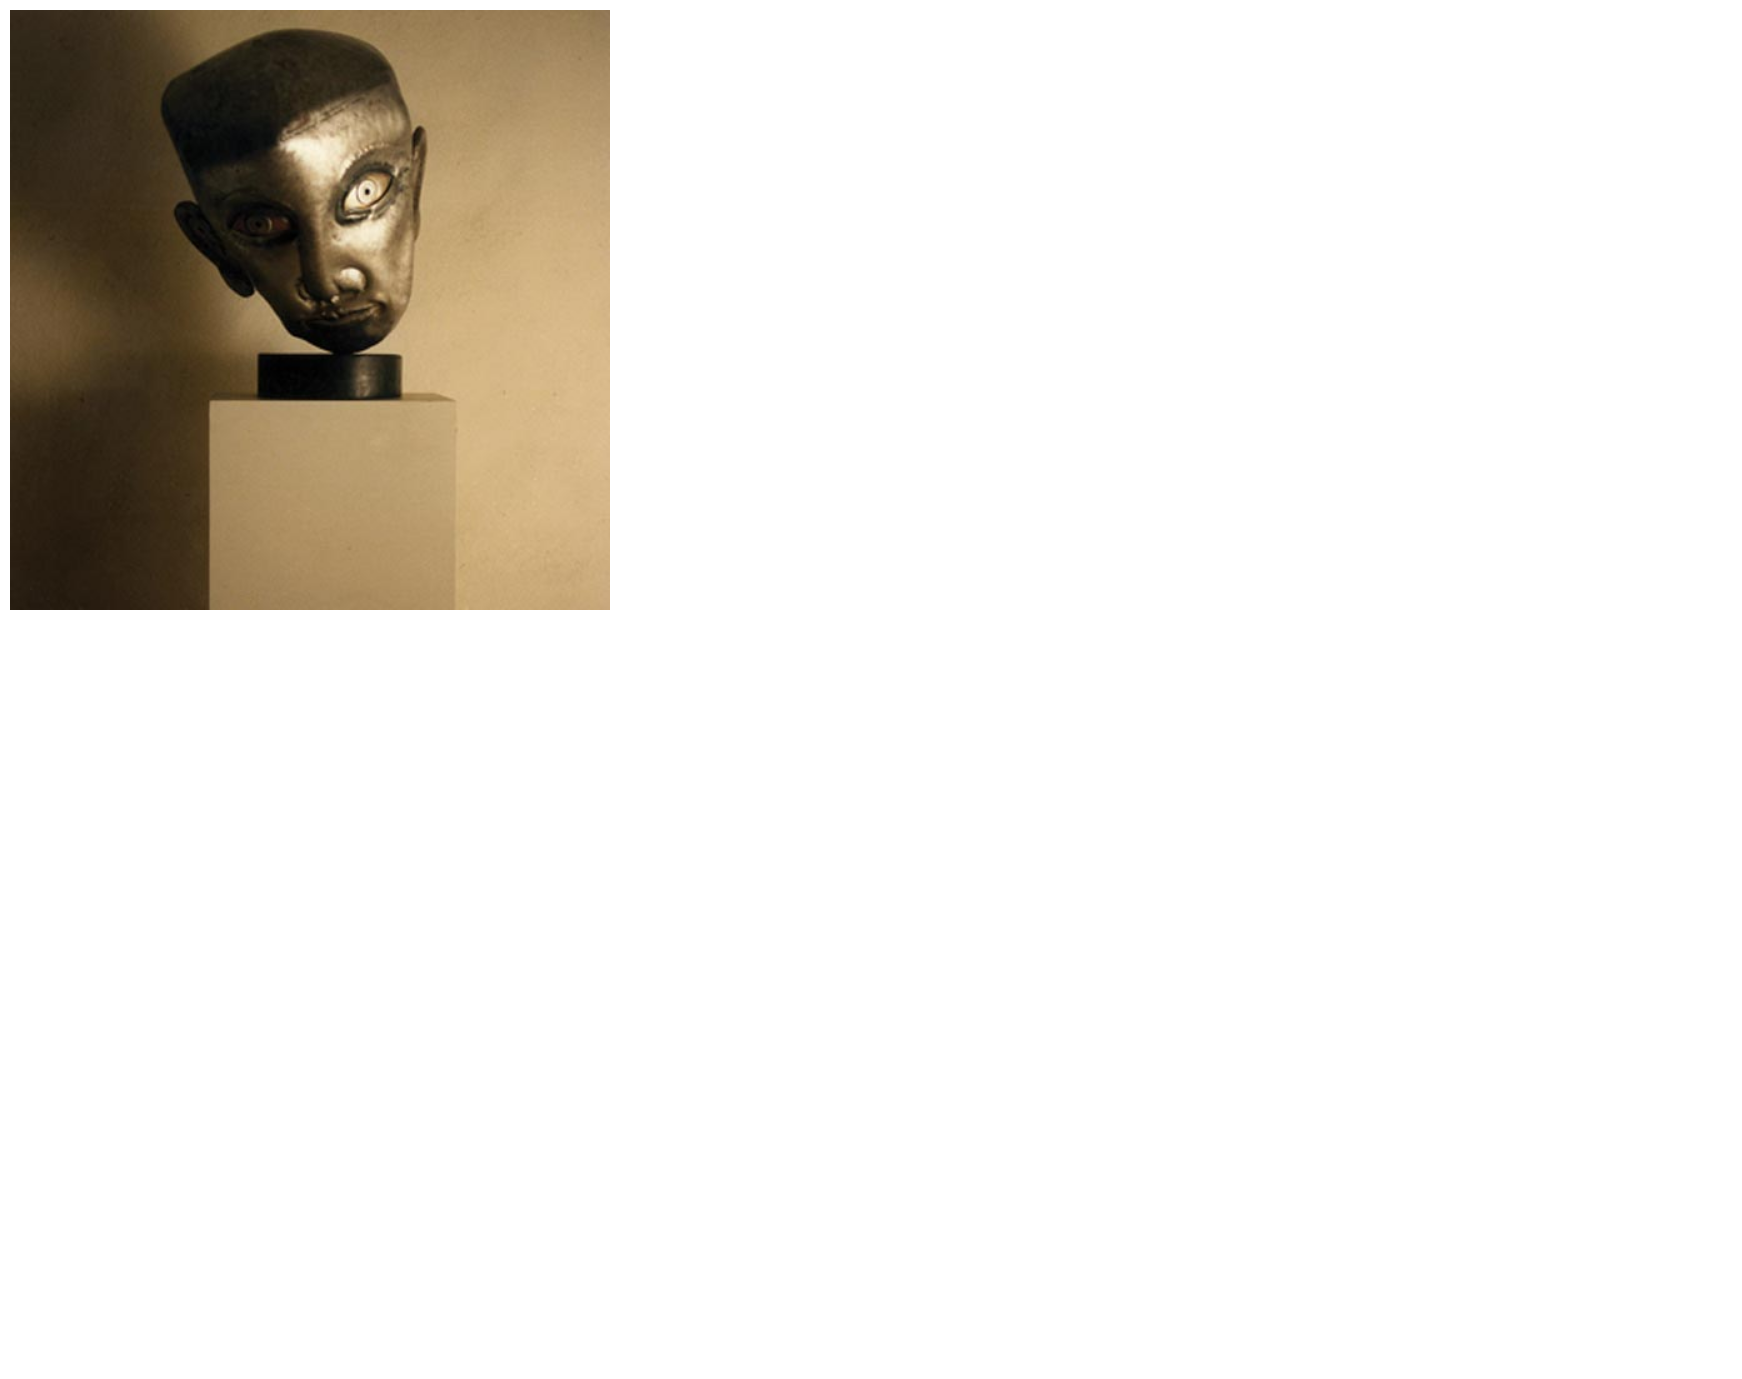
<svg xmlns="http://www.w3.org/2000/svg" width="1742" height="1379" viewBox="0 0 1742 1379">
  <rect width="100%" height="100%" fill="rgb(255,255,255)"/>
  <image x="10" y="10" width="600" height="600" href="pic1.png"/>
</svg>
